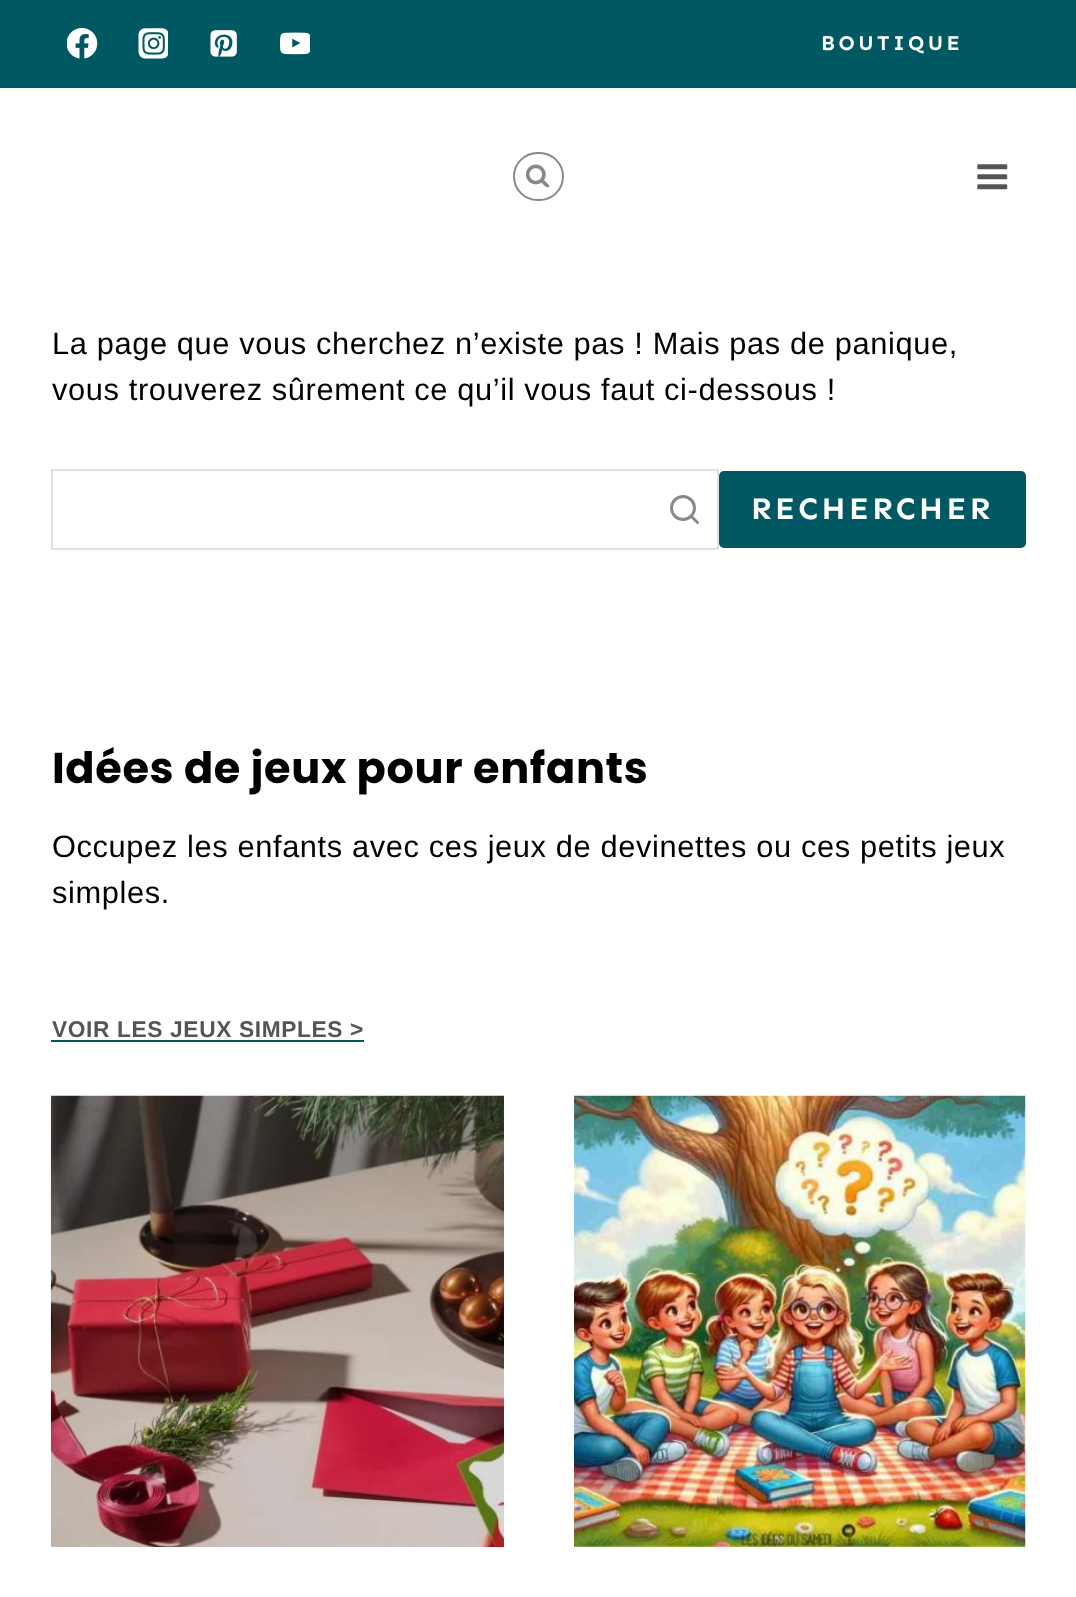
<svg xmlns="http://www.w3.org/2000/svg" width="1076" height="1597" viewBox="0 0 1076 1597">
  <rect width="100%" height="100%" fill="rgb(255,255,255)"/>
  <rect x="0" y="0" width="1076" height="88" fill="rgb(0,89,98)"/>
  <rect x="0" y="88" width="1076" height="2" fill="rgb(255,245,239)"/>
  <image x="67" y="28" width="31" height="31" href="pic1.png"/>
  <image x="138" y="28" width="30" height="31" href="pic2.png"/>
  <image x="210" y="30" width="27" height="27" href="pic3.png"/>
  <image x="280" y="32" width="30" height="23" href="pic4.png"/>
  <text x="821" y="50" font-family="Sen" font-size="21" font-weight="bold" letter-spacing="3.5" fill="rgb(255,255,255)">BOUTIQUE</text>
  <rect x="514" y="153" width="49" height="47" rx="23.5" fill="none" stroke="rgb(136,136,136)" stroke-width="2"/>
  <image x="525" y="164" width="25" height="23" href="pic5.png"/>
  <image x="977" y="164" width="31" height="26" href="pic6.png"/>
  <g font-family="Liberation Sans" font-size="30.8" letter-spacing="0.62" fill="rgb(0,0,0)">
    <text>
      <tspan x="52" y="354">La page que vous cherchez n’existe pas ! Mais pas de panique,</tspan>
      <tspan x="52" y="400">vous trouverez sûrement ce qu’il vous faut ci-dessous !</tspan>
    </text>
  </g>
  <rect x="52" y="470" width="666" height="79" fill="none" stroke="rgb(222,226,230)" stroke-width="2"/>
  <circle cx="683" cy="508" r="11.5" fill="none" stroke="rgb(136,136,136)" stroke-width="2.9"/>
  <path d="M697.5 522.5L691 516" fill="none" stroke="rgb(136,136,136)" stroke-width="2.9" stroke-linecap="round" stroke-linejoin="round"/>
  <rect x="719" y="471" width="307" height="77" rx="5" fill="rgb(0,89,98)"/>
  <text x="751" y="519" font-family="Sen" font-size="31.5" font-weight="bold" letter-spacing="3.5" fill="rgb(255,255,255)">RECHERCHER</text>
  <text x="52" y="783" font-family="Poppins" font-size="43.1" font-weight="bold" letter-spacing="0.62" fill="rgb(0,0,0)">Idées de jeux pour enfants</text>
  <g font-family="Liberation Sans" font-size="30.8" letter-spacing="0.62" fill="rgb(0,0,0)">
    <text>
      <tspan x="52" y="857">Occupez les enfants avec ces jeux de devinettes ou ces petits jeux</tspan>
      <tspan x="52" y="903">simples.</tspan>
    </text>
  </g>
  <text x="52" y="1037" font-family="Liberation Sans" font-size="22.75" font-weight="bold" letter-spacing="0.62" fill="rgb(85,85,85)">VOIR LES JEUX SIMPLES &gt;</text>
  <rect x="51" y="1040" width="313" height="2" fill="rgb(0,89,98)"/>
  <image x="50" y="1095" width="454" height="452" href="pic7.png"/>
  <image x="574" y="1095" width="452" height="452" href="pic8.png"/>
</svg>
